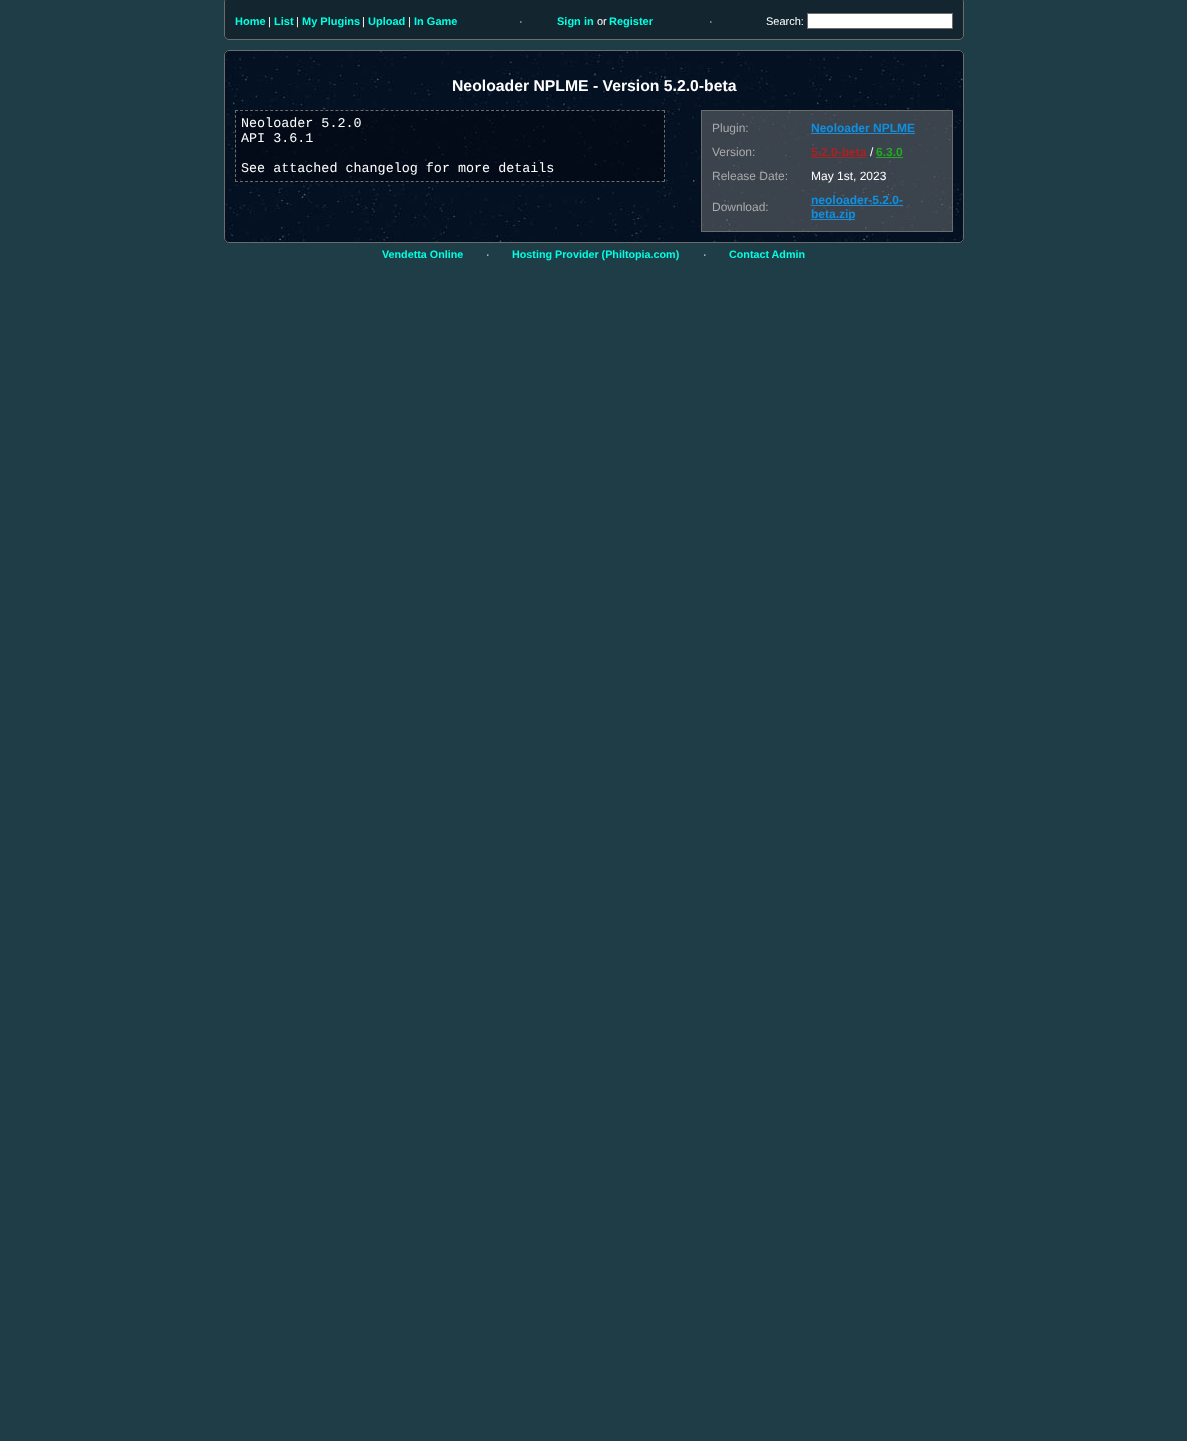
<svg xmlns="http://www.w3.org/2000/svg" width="1187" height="1441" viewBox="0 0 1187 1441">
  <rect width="100%" height="100%" fill="rgb(31,61,71)"/>
  <image x="224" y="0" width="740" height="40" href="pic1.png"/>
  <rect x="224.5" y="-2.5" width="739" height="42" rx="4.5" fill="none" stroke="rgb(108,108,108)"/>
  <text x="235" y="25" font-family="Liberation Sans" font-size="11" font-weight="bold" fill="rgb(0,255,227)">Home</text>
  <text x="268" y="25" font-family="Liberation Sans" font-size="11" fill="rgb(255,255,255)">|</text>
  <text x="274" y="25" font-family="Liberation Sans" font-size="11" font-weight="bold" fill="rgb(0,255,227)">List</text>
  <text x="296" y="25" font-family="Liberation Sans" font-size="11" fill="rgb(255,255,255)">|</text>
  <text x="302" y="25" font-family="Liberation Sans" font-size="11" font-weight="bold" fill="rgb(0,255,227)">My Plugins</text>
  <text x="362" y="25" font-family="Liberation Sans" font-size="11" fill="rgb(255,255,255)">|</text>
  <text x="368" y="25" font-family="Liberation Sans" font-size="11" font-weight="bold" fill="rgb(0,255,227)">Upload</text>
  <text x="408" y="25" font-family="Liberation Sans" font-size="11" fill="rgb(255,255,255)">|</text>
  <text x="414" y="25" font-family="Liberation Sans" font-size="11" font-weight="bold" fill="rgb(0,255,227)">In Game</text>
  <text x="519" y="25" font-family="Liberation Sans" font-size="11" fill="rgb(255,255,255)">·</text>
  <text x="557" y="25" font-family="Liberation Sans" font-size="11" font-weight="bold" fill="rgb(0,255,227)">Sign in</text>
  <text x="597" y="25" font-family="Liberation Sans" font-size="11" fill="rgb(255,255,255)">or</text>
  <text x="609" y="25" font-family="Liberation Sans" font-size="11" font-weight="bold" fill="rgb(0,255,227)">Register</text>
  <g font-family="Liberation Sans" font-size="11" fill="rgb(255,255,255)">
    <text x="709" y="25">·</text>
    <text x="766" y="25">Search:</text>
  </g>
  <rect x="807.5" y="13.5" width="145" height="15" fill="rgb(255,255,255)" stroke="rgb(108,108,108)"/>
  <image x="224" y="50" width="740" height="193" href="pic2.png"/>
  <rect x="224.5" y="50.5" width="739" height="192" rx="4.5" fill="none" stroke="rgb(108,108,108)"/>
  <text x="452" y="91" font-family="Liberation Sans" font-size="15.75" font-weight="bold" fill="rgb(255,255,255)">Neoloader NPLME - Version 5.2.0-beta</text>
  <rect x="235" y="110" width="430" height="72" fill="rgba(2,2,10,0.4)"/>
  <path d="M235 110.5H665" fill="none" stroke="rgb(108,108,108)" stroke-dasharray="3 2.02"/>
  <path d="M664.5 110V182" fill="none" stroke="rgb(108,108,108)" stroke-dasharray="3 1.93"/>
  <path d="M235 181.5H665" fill="none" stroke="rgb(108,108,108)" stroke-dasharray="3 2.02"/>
  <path d="M235.5 110V182" fill="none" stroke="rgb(108,108,108)" stroke-dasharray="3 1.93"/>
  <g font-family="Liberation Mono" font-size="13.4" fill="rgb(255,255,255)">
    <text>
      <tspan x="241" y="127">Neoloader 5.2.0</tspan>
      <tspan x="241" y="142">API 3.6.1</tspan>
    </text>
    <text x="241" y="172">See attached changelog for more details</text>
  </g>
  <rect x="701.5" y="110.5" width="251" height="121" fill="rgba(142,142,142,0.4)" stroke="rgb(108,108,108)"/>
  <text x="712" y="132" font-family="Liberation Sans" font-size="12" fill="rgb(170,170,170)">Plugin:</text>
  <text x="811" y="132" font-family="Liberation Sans" font-size="12" font-weight="bold" fill="rgb(16,144,223)">Neoloader NPLME</text>
  <rect x="811" y="133" width="104" height="1" fill="rgb(16,144,223)"/>
  <text x="712" y="156" font-family="Liberation Sans" font-size="12" fill="rgb(170,170,170)">Version:</text>
  <text x="811" y="156" font-family="Liberation Sans" font-size="12" font-weight="bold" fill="rgb(170,34,34)">5.2.0-beta</text>
  <rect x="811" y="157" width="55" height="1" fill="rgb(170,34,34)"/>
  <text x="870" y="156" font-family="Liberation Sans" font-size="12" fill="rgb(255,255,255)">/</text>
  <text x="876" y="156" font-family="Liberation Sans" font-size="12" font-weight="bold" fill="rgb(34,170,34)">6.3.0</text>
  <rect x="876" y="157" width="27" height="1" fill="rgb(34,170,34)"/>
  <text x="712" y="180" font-family="Liberation Sans" font-size="12" fill="rgb(170,170,170)">Release Date:</text>
  <text x="811" y="180" font-family="Liberation Sans" font-size="12" fill="rgb(255,255,255)">May 1st, 2023</text>
  <text x="712" y="211" font-family="Liberation Sans" font-size="12" fill="rgb(170,170,170)">Download:</text>
  <text x="811" y="204" font-family="Liberation Sans" font-size="12" font-weight="bold" fill="rgb(16,144,223)">neoloader-5.2.0-</text>
  <rect x="811" y="205" width="92" height="1" fill="rgb(16,144,223)"/>
  <rect x="811" y="219" width="44" height="1" fill="rgb(16,144,223)"/>
  <text x="811" y="218" font-family="Liberation Sans" font-size="12" font-weight="bold" fill="rgb(16,144,223)">beta.zip</text>
  <text x="382" y="258" font-family="Liberation Sans" font-size="10.75" font-weight="bold" fill="rgb(0,255,227)">Vendetta Online</text>
  <text x="486" y="258" font-family="Liberation Sans" font-size="10.75" fill="rgb(255,255,255)">·</text>
  <text x="512" y="258" font-family="Liberation Sans" font-size="10.75" font-weight="bold" fill="rgb(0,255,227)">Hosting Provider (Philtopia.com)</text>
  <text x="703" y="258" font-family="Liberation Sans" font-size="10.75" fill="rgb(255,255,255)">·</text>
  <text x="729" y="258" font-family="Liberation Sans" font-size="10.75" font-weight="bold" fill="rgb(0,255,227)">Contact Admin</text>
</svg>
